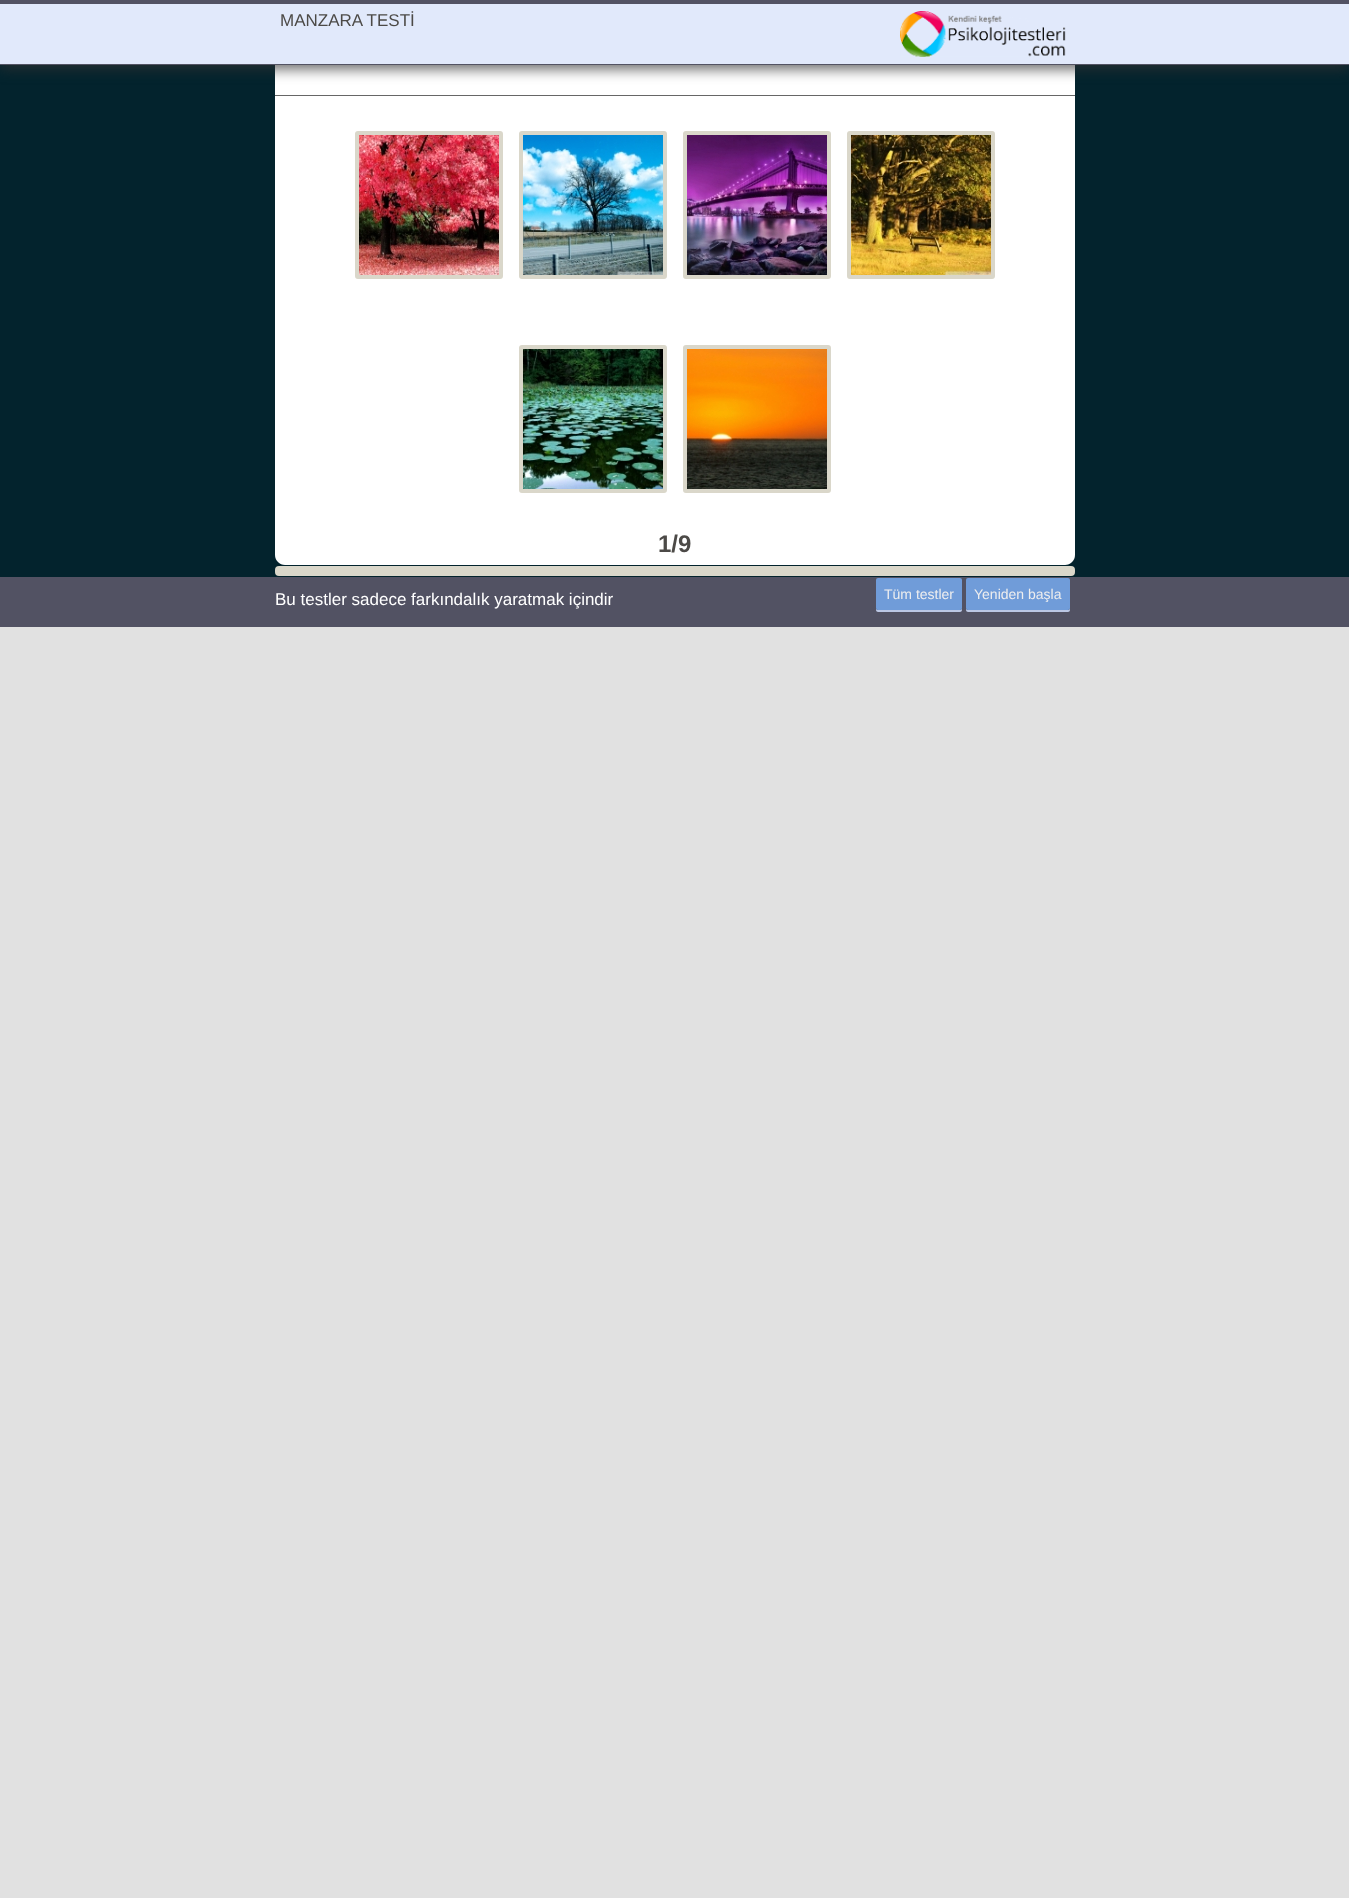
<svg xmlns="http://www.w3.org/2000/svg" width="1349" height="1898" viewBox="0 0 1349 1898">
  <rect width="100%" height="100%" fill="rgb(3,35,45)"/>
  <path d="M275 0H1075V555C1075 560.5 1070.5 565 1065 565H285C279.5 565 275 560.5 275 555Z" fill="rgb(255,255,255)"/>
  <rect x="275" y="95" width="800" height="1" fill="rgb(102,102,102)"/>
  <rect x="357" y="133" width="144" height="144" rx="1" fill="none" stroke="rgb(218,215,202)" stroke-width="4"/>
  <image x="359" y="135" width="140" height="140" href="pic1.png"/>
  <rect x="521" y="133" width="144" height="144" rx="1" fill="none" stroke="rgb(218,215,202)" stroke-width="4"/>
  <image x="523" y="135" width="140" height="140" href="pic2.png"/>
  <rect x="685" y="133" width="144" height="144" rx="1" fill="none" stroke="rgb(218,215,202)" stroke-width="4"/>
  <image x="687" y="135" width="140" height="140" href="pic3.png"/>
  <rect x="849" y="133" width="144" height="144" rx="1" fill="none" stroke="rgb(218,215,202)" stroke-width="4"/>
  <image x="851" y="135" width="140" height="140" href="pic4.png"/>
  <rect x="521" y="347" width="144" height="144" rx="1" fill="none" stroke="rgb(218,215,202)" stroke-width="4"/>
  <image x="523" y="349" width="140" height="140" href="pic5.png"/>
  <rect x="685" y="347" width="144" height="144" rx="1" fill="none" stroke="rgb(218,215,202)" stroke-width="4"/>
  <image x="687" y="349" width="140" height="140" href="pic6.png"/>
  <rect x="0" y="4" width="1349" height="65" fill="rgba(50,50,50,0.75)" filter="blur(7px)"/>
  <rect x="0" y="4" width="1349" height="60" fill="rgb(225,233,251)"/>
  <rect x="0" y="0" width="1349" height="4" fill="rgb(82,82,99)"/>
  <rect x="0" y="64" width="1349" height="1" fill="rgb(83,83,99)"/>
  <text x="280" y="26" font-family="Liberation Sans" font-size="17" fill="rgb(76,74,71)">MANZARA TESTİ</text>
  <image x="900" y="11" width="166" height="46" href="pic7.png"/>
  <rect x="275" y="566" width="800" height="10" rx="4" fill="rgb(218,215,202)"/>
  <text x="658" y="552" font-family="Liberation Sans" font-size="24" font-weight="bold" fill="rgb(76,74,71)">1/9</text>
  <rect x="0" y="577" width="1349" height="50" fill="rgb(82,82,99)"/>
  <text x="275" y="605" font-family="Liberation Sans" font-size="17" fill="rgb(255,255,255)">Bu testler sadece farkındalık yaratmak içindir</text>
  <path d="M876 608V610C876 611 877 612 878 612H960C961 612 962 611 962 610V608C962 609 961 610 960 610H878C877 610 876 609 876 608Z" fill="rgb(187,199,228)"/>
  <rect x="876" y="578" width="86" height="32" rx="2" fill="rgb(112,156,217)"/>
  <text x="884" y="599" font-family="Liberation Sans" font-size="14" fill="rgb(238,238,239)">Tüm testler</text>
  <path d="M966 608V610C966 611 967 612 968 612H1068C1069 612 1070 611 1070 610V608L1069 610H968C967 610 966 609 966 608Z" fill="rgb(187,199,228)"/>
  <rect x="966" y="578" width="104" height="32" rx="2" fill="rgb(112,156,217)"/>
  <text x="974" y="599" font-family="Liberation Sans" font-size="14" fill="rgb(238,238,239)">Yeniden başla</text>
  <rect x="0" y="627" width="1349" height="1271" fill="rgb(225,225,225)"/>
</svg>
